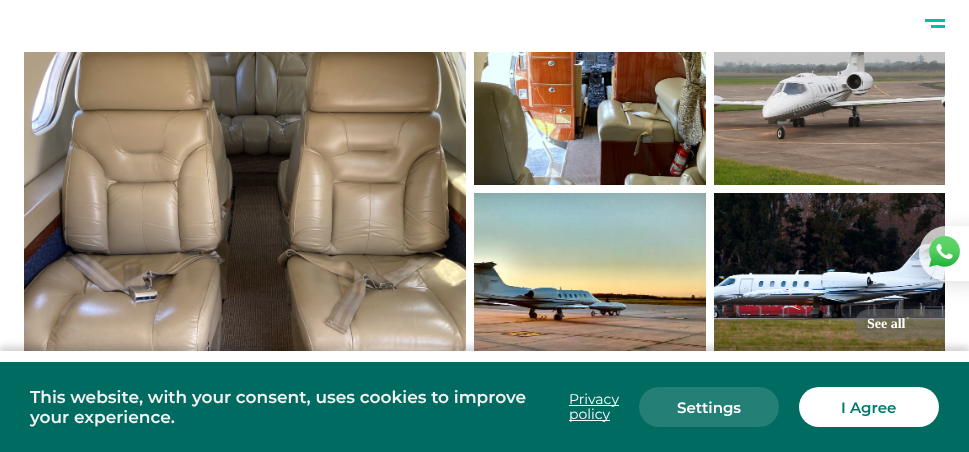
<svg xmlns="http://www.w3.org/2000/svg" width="969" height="452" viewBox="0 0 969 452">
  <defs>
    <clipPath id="clip1"><path d="M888 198H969V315H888ZM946.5 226H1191.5C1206.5 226 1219 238.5 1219 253.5C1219 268.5 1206.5 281 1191.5 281H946.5C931.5 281 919 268.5 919 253.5C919 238.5 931.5 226 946.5 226Z" clip-rule="evenodd"/></clipPath>
  </defs>
  <rect width="100%" height="100%" fill="rgb(255,255,255)"/>
  <image x="925" y="19" width="20" height="9" href="pic1.png"/>
  <image x="714" y="193" width="231" height="158" href="pic7.png"/>
  <path d="M870 309H945V339H870C861.5 339 855 332.5 855 324C855 315.5 861.5 309 870 309Z" fill="rgba(112,112,112,0.53)"/>
  <g clip-path="url(#clip1)">
    <rect x="919" y="229" width="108" height="55" rx="27.5" fill="rgba(0,0,0,0.13)" filter="blur(10px)"/>
  </g>
  <rect x="919" y="226" width="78" height="55" rx="27.5" fill="rgba(255,255,255,0.71)"/>
  <image x="929" y="236" width="31" height="31" href="pic2.png"/>
  <image x="24" y="52" width="442" height="299" href="pic3.png"/>
  <image x="474" y="52" width="232" height="133" href="pic4.png"/>
  <image x="714" y="52" width="231" height="133" href="pic5.png"/>
  <image x="474" y="193" width="232" height="158" href="pic6.png"/>
  <text x="867" y="328" font-family="Liberation Serif" font-size="14" font-weight="bold" fill="rgb(255,255,255)">See all</text>
  <rect x="0" y="346" width="969" height="101" fill="rgba(0,0,0,0.16)" filter="blur(3px)"/>
  <rect x="0" y="351" width="969" height="11" fill="rgb(255,255,255)"/>
  <rect x="0" y="362" width="969" height="90" fill="rgb(0,107,96)"/>
  <g font-family="Montserrat" font-size="17" font-weight="600" fill="rgb(241,241,241)">
    <text>
      <tspan x="30" y="403">This website, with your consent, uses cookies to improve</tspan>
      <tspan x="30" y="423">your experience.</tspan>
    </text>
  </g>
  <rect x="569" y="405" width="50" height="1" fill="rgb(255,255,255)"/>
  <text x="569" y="404" font-family="Montserrat" font-size="14" fill="rgb(255,255,255)">Privacy</text>
  <rect x="569" y="420" width="41" height="1" fill="rgb(255,255,255)"/>
  <text x="569" y="419" font-family="Montserrat" font-size="14" fill="rgb(255,255,255)">policy</text>
  <rect x="639" y="387" width="140" height="40" rx="20" fill="rgb(36,127,118)"/>
  <text x="677" y="413" font-family="Montserrat" font-size="15" font-weight="600" fill="rgb(255,255,255)">Settings</text>
  <rect x="799" y="387" width="140" height="40" rx="20" fill="rgb(255,255,255)"/>
  <text x="841" y="413" font-family="Montserrat" font-size="15" font-weight="600" fill="rgb(0,121,110)">I Agree</text>
</svg>
